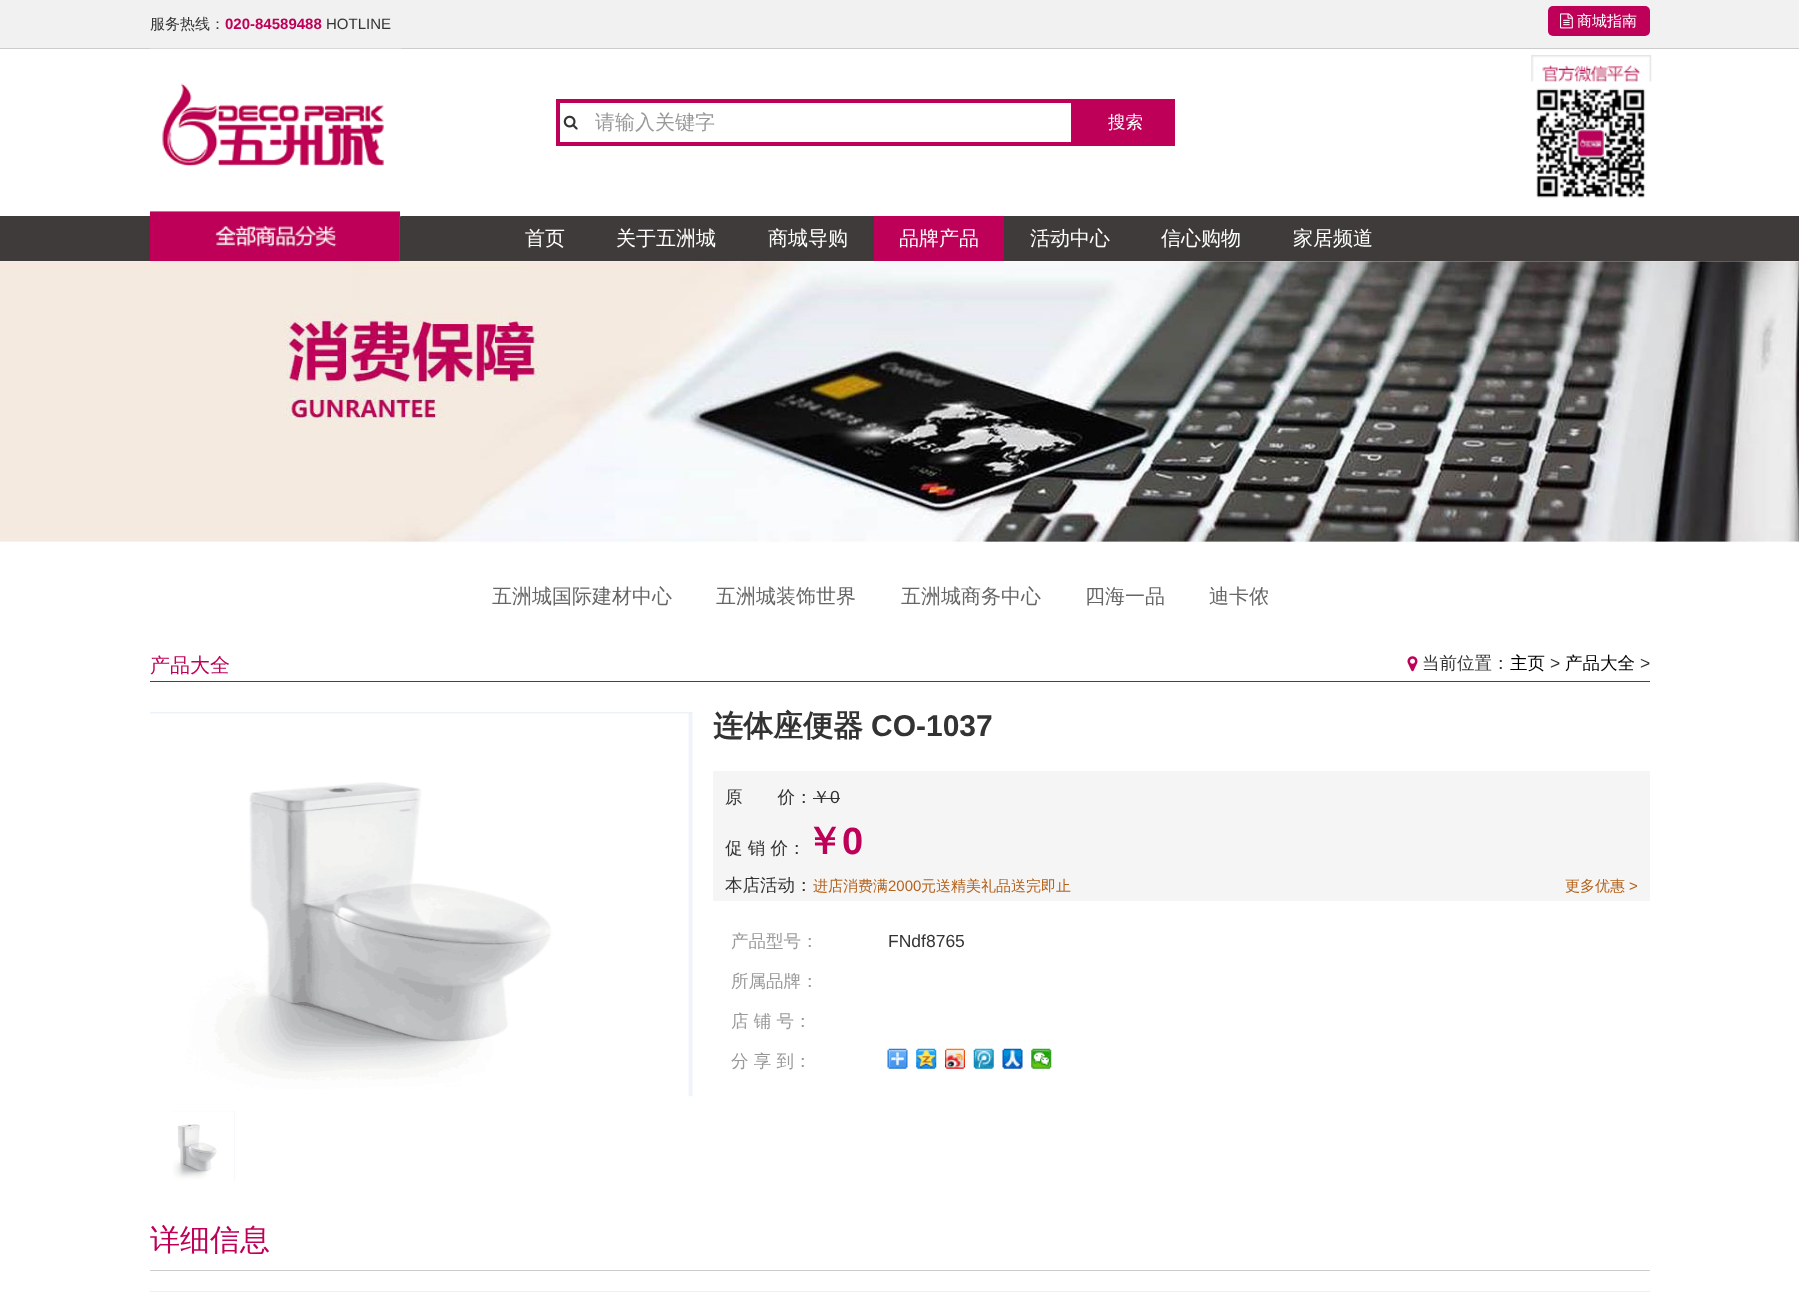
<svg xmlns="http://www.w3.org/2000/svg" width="1799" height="1295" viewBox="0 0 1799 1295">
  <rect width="100%" height="100%" fill="rgb(255,255,255)"/>
  <rect x="0" y="0" width="1799" height="48" fill="rgb(241,241,241)"/>
  <rect x="0" y="48" width="1799" height="1" fill="rgb(204,204,204)"/>
  <text x="150" y="29" font-family="WenQuanYi Zen Hei" font-size="15" font-weight="500" fill="rgb(51,51,51)">服务热线：</text>
  <text x="225" y="29" font-family="Liberation Sans" font-size="15" font-weight="bold" fill="rgb(190,0,88)">020-84589488</text>
  <text x="326" y="29" font-family="Liberation Sans" font-size="15" fill="rgb(51,51,51)">HOTLINE</text>
  <rect x="1548" y="6" width="102" height="30" rx="5" fill="rgb(190,0,88)"/>
  <image x="1560" y="13" width="13" height="16" href="pic1.png"/>
  <text x="1577" y="26" font-family="WenQuanYi Zen Hei" font-size="15" font-weight="500" fill="rgb(255,255,255)">商城指南</text>
  <rect x="0" y="216" width="1799" height="45" fill="rgb(63,59,58)"/>
  <image x="150" y="48" width="252" height="169" href="pic2.png"/>
  <rect x="558" y="101" width="515" height="43" fill="none" stroke="rgb(190,0,88)" stroke-width="4"/>
  <image x="563" y="115" width="15" height="15" href="pic3.png"/>
  <text x="595" y="129" font-family="WenQuanYi Zen Hei" font-size="20" font-weight="500" fill="rgb(153,153,153)">请输入关键字</text>
  <rect x="1075" y="99" width="100" height="47" fill="rgb(190,0,88)"/>
  <text x="1108" y="128" font-family="WenQuanYi Zen Hei" font-size="17.5" font-weight="500" fill="rgb(255,255,255)">搜索</text>
  <image x="1531" y="55" width="121" height="143" href="pic4.png"/>
  <rect x="150" y="211" width="250" height="50" fill="rgb(245,245,245)"/>
  <image x="0" y="261" width="1799" height="282" href="pic6.png"/>
  <image x="150" y="211" width="250" height="51" href="pic5.png"/>
  <g font-family="WenQuanYi Zen Hei" font-size="20" font-weight="500" fill="rgb(255,255,255)">
    <text x="525" y="245">首页</text>
    <text x="616" y="245">关于五洲城</text>
    <text x="768" y="245">商城导购</text>
  </g>
  <rect x="874" y="216" width="130" height="45" fill="rgb(190,0,88)"/>
  <g font-family="WenQuanYi Zen Hei" font-size="20" font-weight="500" fill="rgb(255,255,255)">
    <text x="899" y="245">品牌产品</text>
    <text x="1030" y="245">活动中心</text>
    <text x="1161" y="245">信心购物</text>
    <text x="1293" y="245">家居频道</text>
  </g>
  <g font-family="WenQuanYi Zen Hei" font-size="20" font-weight="500" fill="rgb(102,102,102)">
    <text x="492" y="603">五洲城国际建材中心</text>
    <text x="716" y="603">五洲城装饰世界</text>
    <text x="901" y="603">五洲城商务中心</text>
    <text x="1085" y="603">四海一品</text>
    <text x="1209" y="603">迪卡侬</text>
  </g>
  <rect x="150" y="681" width="1500" height="1" fill="rgb(190,0,88)"/>
  <text x="150" y="672" font-family="WenQuanYi Zen Hei" font-size="20" font-weight="500" fill="rgb(190,0,88)">产品大全</text>
  <image x="1407" y="656" width="11" height="16" href="pic7.png"/>
  <text x="1422" y="669" font-family="WenQuanYi Zen Hei" font-size="17.5" font-weight="500" fill="rgb(51,51,51)">当前位置：</text>
  <text x="1510" y="669" font-family="WenQuanYi Zen Hei" font-size="17.5" font-weight="500" fill="rgb(0,0,0)">主页</text>
  <text x="1550" y="669" font-family="Liberation Sans" font-size="17.5" fill="rgb(51,51,51)">&gt;</text>
  <text x="1565" y="669" font-family="WenQuanYi Zen Hei" font-size="17.5" font-weight="500" fill="rgb(0,0,0)">产品大全</text>
  <text x="1640" y="669" font-family="Liberation Sans" font-size="17.5" fill="rgb(51,51,51)">&gt;</text>
  <image x="150" y="712" width="543" height="385" href="pic8.png"/>
  <image x="173" y="1111" width="62" height="70" href="pic9.png"/>
  <text x="713" y="736" font-family="WenQuanYi Zen Hei" font-size="30" font-weight="bold" fill="rgb(51,51,51)">连体座便器</text>
  <text x="871" y="736" font-family="Liberation Sans" font-size="30" font-weight="bold" fill="rgb(51,51,51)">CO-1037</text>
  <rect x="713" y="771" width="937" height="130" fill="rgb(245,245,245)"/>
  <text x="725" y="803" font-family="WenQuanYi Zen Hei" font-size="17.5" font-weight="500" fill="rgb(51,51,51)">原　　价：￥</text>
  <text x="830" y="803" font-family="Liberation Sans" font-size="17.5" fill="rgb(51,51,51)">0</text>
  <rect x="813" y="798" width="27" height="1" fill="rgb(51,51,51)"/>
  <text x="725" y="854" font-family="WenQuanYi Zen Hei" font-size="17.5" font-weight="500" fill="rgb(51,51,51)">促 销 价：</text>
  <text x="805" y="854" font-family="WenQuanYi Zen Hei" font-size="38" font-weight="bold" fill="rgb(190,0,88)">￥</text>
  <text x="842" y="854" font-family="Liberation Sans" font-size="38" font-weight="bold" fill="rgb(190,0,88)">0</text>
  <text x="725" y="891" font-family="WenQuanYi Zen Hei" font-size="17.5" font-weight="500" fill="rgb(51,51,51)">本店活动：</text>
  <text x="813" y="891" font-family="WenQuanYi Zen Hei" font-size="15" font-weight="500" fill="rgb(181,98,27)">进店消费满</text>
  <text x="888" y="891" font-family="Liberation Sans" font-size="15" fill="rgb(181,98,27)">2000</text>
  <g font-family="WenQuanYi Zen Hei" font-size="15" font-weight="500" fill="rgb(181,98,27)">
    <text x="921" y="891">元送精美礼品送完即止</text>
    <text x="1565" y="891">更多优惠</text>
  </g>
  <text x="1629" y="891" font-family="Liberation Sans" font-size="15" fill="rgb(181,98,27)">&gt;</text>
  <text x="731" y="947" font-family="WenQuanYi Zen Hei" font-size="17.5" font-weight="500" fill="rgb(153,153,153)">产品型号：</text>
  <text x="888" y="947" font-family="Liberation Sans" font-size="17.5" fill="rgb(51,51,51)">FNdf8765</text>
  <g font-family="WenQuanYi Zen Hei" font-size="17.5" font-weight="500" fill="rgb(153,153,153)">
    <text x="731" y="987">所属品牌：</text>
    <text x="731" y="1027">店 铺 号：</text>
    <text x="731" y="1067">分 享 到：</text>
  </g>
  <image x="887" y="1048" width="21" height="21" href="pic10.png"/>
  <image x="916" y="1048" width="21" height="21" href="pic11.png"/>
  <image x="945" y="1048" width="20" height="21" href="pic12.png"/>
  <image x="973" y="1048" width="21" height="21" href="pic13.png"/>
  <image x="1002" y="1048" width="21" height="21" href="pic14.png"/>
  <image x="1031" y="1048" width="21" height="21" href="pic15.png"/>
  <rect x="150" y="1270" width="1500" height="1" fill="rgb(204,204,204)"/>
  <text x="150" y="1250" font-family="WenQuanYi Zen Hei" font-size="30" font-weight="500" fill="rgb(190,0,88)">详细信息</text>
  <rect x="150" y="1291" width="1500" height="1" fill="rgb(238,238,238)"/>
</svg>
